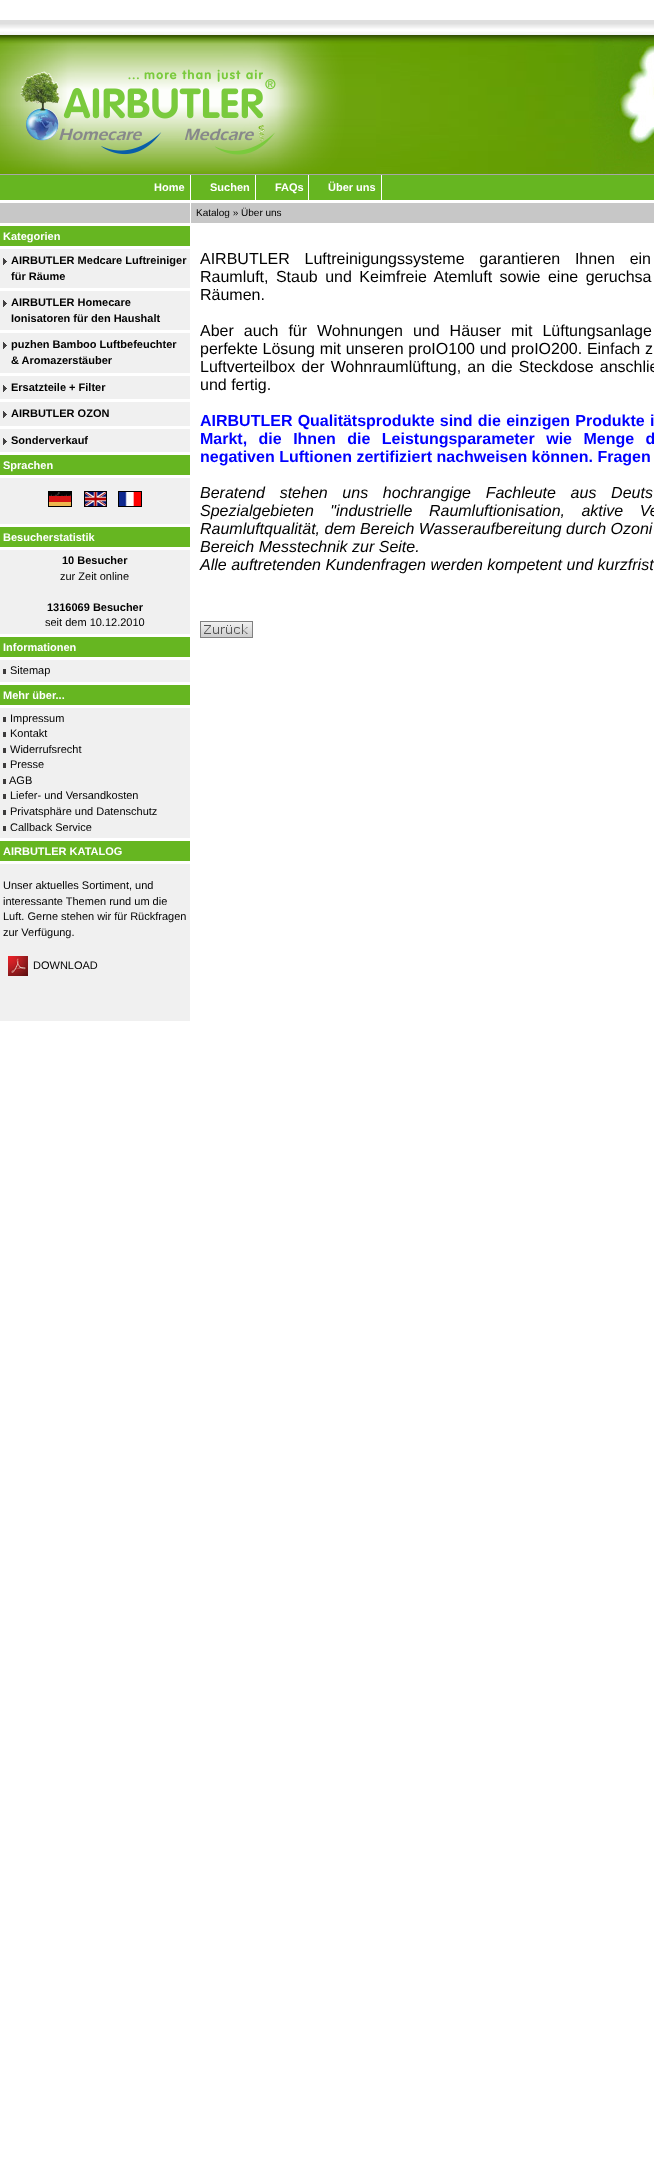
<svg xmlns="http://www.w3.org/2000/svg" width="654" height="2183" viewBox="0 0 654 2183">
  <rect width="100%" height="100%" fill="rgb(255,255,255)"/>
  <rect x="0" y="174" width="654" height="1" fill="rgb(167,167,167)"/>
  <image x="0" y="20" width="654" height="154" href="pic1.png"/>
  <rect x="0" y="175" width="654" height="25" fill="rgb(102,182,33)"/>
  <rect x="190" y="175" width="1" height="25" fill="rgb(255,255,255)"/>
  <text x="154" y="191" font-family="Liberation Sans" font-size="11" font-weight="bold" fill="rgb(255,255,255)">Home</text>
  <rect x="255" y="175" width="1" height="25" fill="rgb(255,255,255)"/>
  <text x="210" y="191" font-family="Liberation Sans" font-size="11" font-weight="bold" fill="rgb(255,255,255)">Suchen</text>
  <rect x="308" y="175" width="1" height="25" fill="rgb(255,255,255)"/>
  <text x="275" y="191" font-family="Liberation Sans" font-size="11" font-weight="bold" fill="rgb(255,255,255)">FAQs</text>
  <rect x="381" y="175" width="1" height="25" fill="rgb(255,255,255)"/>
  <text x="328" y="191" font-family="Liberation Sans" font-size="11" font-weight="bold" fill="rgb(255,255,255)">Über uns</text>
  <rect x="0" y="203" width="654" height="20" fill="rgb(199,199,199)"/>
  <rect x="190" y="203" width="1" height="20" fill="rgb(255,255,255)"/>
  <text x="196" y="216" font-family="Liberation Sans" font-size="10" fill="rgb(0,0,0)">Katalog » Über uns</text>
  <rect x="0" y="226" width="190" height="20" fill="rgb(102,182,33)"/>
  <text x="3" y="240" font-family="Liberation Sans" font-size="11" font-weight="bold" fill="rgb(255,255,255)">Kategorien</text>
  <rect x="0" y="249" width="190" height="39" fill="rgb(240,240,240)"/>
  <image x="3" y="258" width="4" height="7" href="pic2.png"/>
  <g font-family="Liberation Sans" font-size="11" font-weight="bold" fill="rgb(0,0,0)">
    <text>
      <tspan x="11" y="264">AIRBUTLER Medcare Luftreiniger</tspan>
      <tspan x="11" y="280">für Räume</tspan>
    </text>
  </g>
  <rect x="0" y="291" width="190" height="39" fill="rgb(240,240,240)"/>
  <image x="3" y="300" width="4" height="7" href="pic2.png"/>
  <g font-family="Liberation Sans" font-size="11" font-weight="bold" fill="rgb(0,0,0)">
    <text>
      <tspan x="11" y="306">AIRBUTLER Homecare</tspan>
      <tspan x="11" y="322">Ionisatoren für den Haushalt</tspan>
    </text>
  </g>
  <rect x="0" y="333" width="190" height="40" fill="rgb(240,240,240)"/>
  <image x="3" y="342" width="4" height="7" href="pic2.png"/>
  <g font-family="Liberation Sans" font-size="11" font-weight="bold" fill="rgb(0,0,0)">
    <text>
      <tspan x="11" y="348">puzhen Bamboo Luftbefeuchter</tspan>
      <tspan x="11" y="364">&amp; Aromazerstäuber</tspan>
    </text>
  </g>
  <rect x="0" y="376" width="190" height="23" fill="rgb(240,240,240)"/>
  <image x="3" y="385" width="4" height="7" href="pic2.png"/>
  <text x="11" y="391" font-family="Liberation Sans" font-size="11" font-weight="bold" fill="rgb(0,0,0)">Ersatzteile + Filter</text>
  <rect x="0" y="402" width="190" height="24" fill="rgb(240,240,240)"/>
  <image x="3" y="411" width="4" height="7" href="pic2.png"/>
  <text x="11" y="417" font-family="Liberation Sans" font-size="11" font-weight="bold" fill="rgb(0,0,0)">AIRBUTLER OZON</text>
  <rect x="0" y="429" width="190" height="23" fill="rgb(240,240,240)"/>
  <image x="3" y="438" width="4" height="7" href="pic2.png"/>
  <text x="11" y="444" font-family="Liberation Sans" font-size="11" font-weight="bold" fill="rgb(0,0,0)">Sonderverkauf</text>
  <rect x="0" y="455" width="190" height="20" fill="rgb(102,182,33)"/>
  <text x="3" y="469" font-family="Liberation Sans" font-size="11" font-weight="bold" fill="rgb(255,255,255)">Sprachen</text>
  <rect x="0" y="478" width="190" height="46" fill="rgb(240,240,240)"/>
  <image x="48" y="491" width="24" height="16" href="pic3.png"/>
  <image x="84" y="491" width="23" height="16" href="pic4.png"/>
  <image x="118" y="491" width="24" height="16" href="pic5.png"/>
  <rect x="0" y="527" width="190" height="20" fill="rgb(102,182,33)"/>
  <text x="3" y="541" font-family="Liberation Sans" font-size="11" font-weight="bold" fill="rgb(255,255,255)">Besucherstatistik</text>
  <rect x="0" y="550" width="190" height="84" fill="rgb(240,240,240)"/>
  <text x="62" y="564" font-family="Liberation Sans" font-size="11" font-weight="bold" fill="rgb(0,0,0)">10 Besucher</text>
  <text x="60" y="580" font-family="Liberation Sans" font-size="11" fill="rgb(0,0,0)">zur Zeit online</text>
  <text x="47" y="611" font-family="Liberation Sans" font-size="11" font-weight="bold" fill="rgb(0,0,0)">1316069 Besucher</text>
  <text x="45" y="626" font-family="Liberation Sans" font-size="11" fill="rgb(0,0,0)">seit dem 10.12.2010</text>
  <rect x="0" y="637" width="190" height="20" fill="rgb(102,182,33)"/>
  <text x="3" y="651" font-family="Liberation Sans" font-size="11" font-weight="bold" fill="rgb(255,255,255)">Informationen</text>
  <rect x="0" y="660" width="190" height="22" fill="rgb(240,240,240)"/>
  <rect x="3" y="669" width="3" height="5" fill="rgb(62,60,61)"/>
  <text x="10" y="674" font-family="Liberation Sans" font-size="11" fill="rgb(0,0,0)">Sitemap</text>
  <rect x="0" y="685" width="190" height="20" fill="rgb(102,182,33)"/>
  <text x="3" y="699" font-family="Liberation Sans" font-size="11" font-weight="bold" fill="rgb(255,255,255)">Mehr über...</text>
  <rect x="0" y="708" width="190" height="130" fill="rgb(240,240,240)"/>
  <rect x="3" y="717" width="3" height="5" fill="rgb(62,60,61)"/>
  <text x="10" y="722" font-family="Liberation Sans" font-size="11" fill="rgb(0,0,0)">Impressum</text>
  <rect x="3" y="732" width="3" height="5" fill="rgb(62,60,61)"/>
  <text x="10" y="737" font-family="Liberation Sans" font-size="11" fill="rgb(0,0,0)">Kontakt</text>
  <rect x="3" y="748" width="3" height="5" fill="rgb(62,60,61)"/>
  <text x="10" y="753" font-family="Liberation Sans" font-size="11" fill="rgb(0,0,0)">Widerrufsrecht</text>
  <rect x="3" y="763" width="3" height="5" fill="rgb(62,60,61)"/>
  <text x="10" y="768" font-family="Liberation Sans" font-size="11" fill="rgb(0,0,0)">Presse</text>
  <rect x="3" y="779" width="3" height="5" fill="rgb(62,60,61)"/>
  <text x="9" y="784" font-family="Liberation Sans" font-size="11" fill="rgb(0,0,0)">AGB</text>
  <rect x="3" y="794" width="3" height="5" fill="rgb(62,60,61)"/>
  <text x="10" y="799" font-family="Liberation Sans" font-size="11" fill="rgb(0,0,0)">Liefer- und Versandkosten</text>
  <rect x="3" y="810" width="3" height="5" fill="rgb(62,60,61)"/>
  <text x="10" y="815" font-family="Liberation Sans" font-size="11" fill="rgb(0,0,0)">Privatsphäre und Datenschutz</text>
  <rect x="3" y="826" width="3" height="5" fill="rgb(62,60,61)"/>
  <text x="10" y="831" font-family="Liberation Sans" font-size="11" fill="rgb(0,0,0)">Callback Service</text>
  <rect x="0" y="841" width="190" height="20" fill="rgb(102,182,33)"/>
  <text x="3" y="855" font-family="Liberation Sans" font-size="11" font-weight="bold" fill="rgb(255,255,255)">AIRBUTLER KATALOG</text>
  <rect x="0" y="864" width="190" height="157" fill="rgb(240,240,240)"/>
  <g font-family="Liberation Sans" font-size="11" fill="rgb(0,0,0)">
    <text>
      <tspan x="3" y="889">Unser aktuelles Sortiment, und</tspan>
      <tspan x="3" y="905">interessante Themen rund um die</tspan>
      <tspan x="3" y="920">Luft. Gerne stehen wir für Rückfragen</tspan>
      <tspan x="3" y="936">zur Verfügung.</tspan>
    </text>
  </g>
  <image x="8" y="956" width="20" height="20" href="pic6.png"/>
  <text x="33" y="969" font-family="Liberation Sans" font-size="11" fill="rgb(0,0,0)">DOWNLOAD</text>
  <g font-family="Liberation Sans" font-size="16" fill="rgb(0,0,0)">
    <text>
      <tspan x="200" y="264" word-spacing="10.25">AIRBUTLER Luftreinigungssysteme garantieren Ihnen ein</tspan>
      <tspan x="200" y="282" word-spacing="3">Raumluft, Staub und Keimfreie Atemluft sowie eine geruchsa</tspan>
      <tspan x="200" y="300">Räumen.</tspan>
    </text>
    <text>
      <tspan x="200" y="336" word-spacing="5.5">Aber auch für Wohnungen und Häuser mit Lüftungsanlage</tspan>
      <tspan x="200" y="354" word-spacing="0.25">perfekte Lösung mit unseren proIO100 und proIO200. Einfach z</tspan>
      <tspan x="200" y="372" word-spacing="1.75">Luftverteilbox der Wohnraumlüftung, an die Steckdose anschlie</tspan>
      <tspan x="200" y="390">und fertig.</tspan>
    </text>
  </g>
  <g font-family="Liberation Sans" font-size="16" font-weight="bold" fill="rgb(0,0,255)">
    <text>
      <tspan x="200" y="426" word-spacing="0.75">AIRBUTLER Qualitätsprodukte sind die einzigen Produkte i</tspan>
      <tspan x="200" y="444" word-spacing="7">Markt, die Ihnen die Leistungsparameter wie Menge d</tspan>
      <tspan x="200" y="462">negativen Luftionen zertifiziert nachweisen können. Fragen</tspan>
    </text>
  </g>
  <g font-family="Liberation Sans" font-size="16" font-style="italic" fill="rgb(0,0,0)">
    <text>
      <tspan x="200" y="498" word-spacing="10.25">Beratend stehen uns hochrangige Fachleute aus Deuts</tspan>
      <tspan x="200" y="516" word-spacing="12">Spezialgebieten "industrielle Raumluftionisation, aktive Ve</tspan>
      <tspan x="200" y="534">Raumluftqualität, dem Bereich Wasseraufbereitung durch Ozoni</tspan>
      <tspan x="200" y="552">Bereich Messtechnik zur Seite.</tspan>
      <tspan x="200" y="570">Alle auftretenden Kundenfragen werden kompetent und kurzfrist</tspan>
    </text>
  </g>
  <image x="200" y="621" width="53" height="17" href="pic7.png"/>
</svg>
